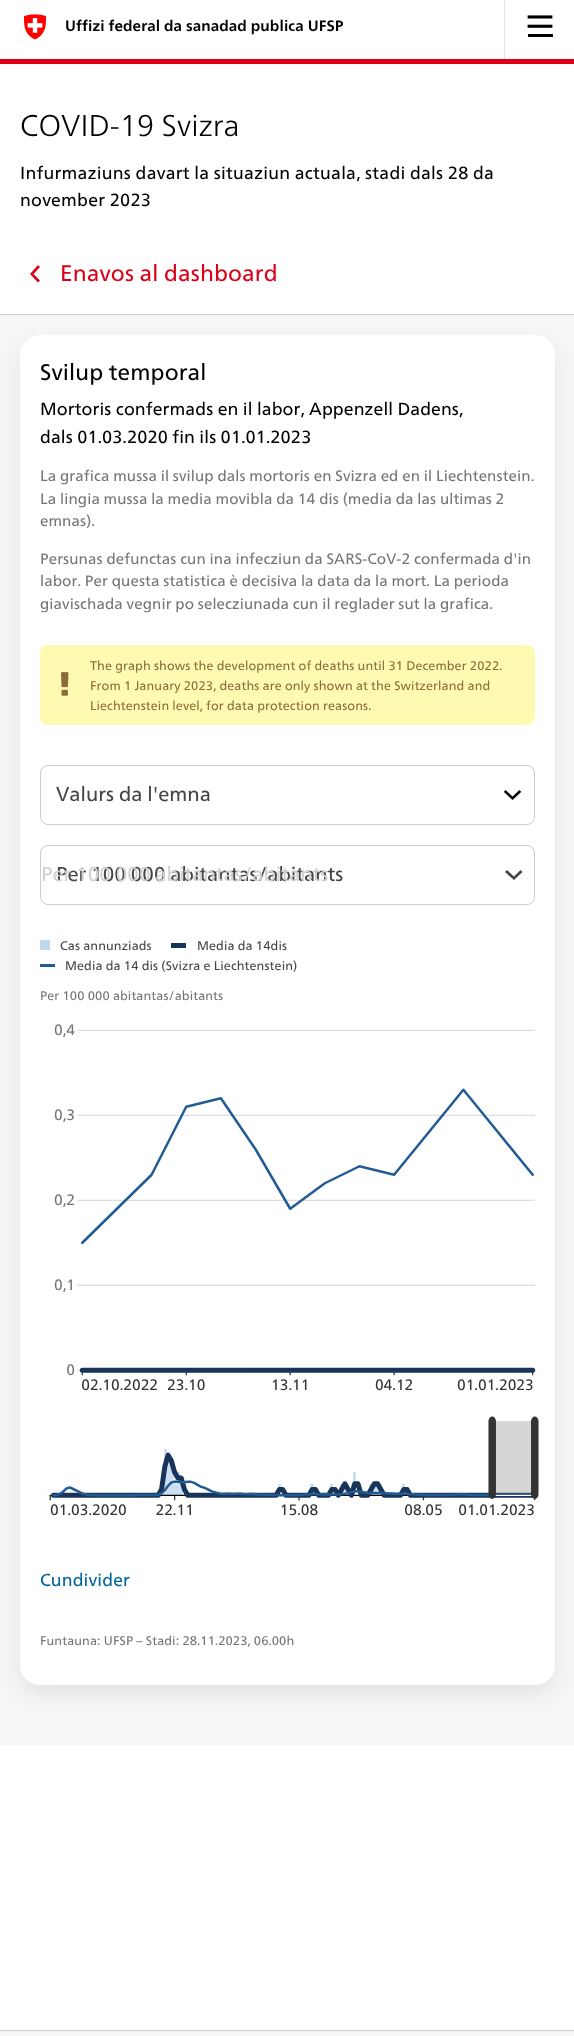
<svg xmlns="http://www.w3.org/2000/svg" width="574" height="2036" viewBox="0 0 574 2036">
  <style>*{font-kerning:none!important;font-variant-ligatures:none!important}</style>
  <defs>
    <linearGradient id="g1" gradientUnits="userSpaceOnUse" x1="534" y1="875" x2="489" y2="875"><stop offset="0.75" stop-color="rgb(255,255,255)"/><stop offset="1" stop-color="rgb(255,255,255)" stop-opacity="0"/></linearGradient>
  </defs>
  <rect width="100%" height="100%" fill="rgb(255,255,255)"/>
  <rect x="0" y="59" width="574" height="5" fill="rgb(220,0,24)"/>
  <image x="24" y="14" width="22" height="26" href="pic1.png"/>
  <rect x="504" y="0" width="1" height="59" fill="rgb(229,229,229)"/>
  <text x="65" y="31" font-family="'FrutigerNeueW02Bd'" font-size="15" font-weight="bold" letter-spacing="0.12" fill="rgb(0,0,0)">Uffizi federal da sanadad publica UFSP</text>
  <image x="527" y="15" width="26" height="22" href="pic2.png"/>
  <text x="20" y="136" font-family="'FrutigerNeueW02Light'" font-size="30" font-weight="300" letter-spacing="0.12" fill="rgb(0,0,0)">COVID-19 Svizra</text>
  <g font-family="'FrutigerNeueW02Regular'" font-size="17.5" letter-spacing="0.25" fill="rgb(0,0,0)">
    <text>
      <tspan x="20" y="179">Infurmaziuns davart la situaziun actuala, stadi dals 28 da</tspan>
      <tspan x="20" y="206">november 2023</tspan>
    </text>
  </g>
  <path d="M33.5 274L40 267L38 265L30 274L38 282.5L40 280.5Z" fill="rgb(220,0,24)" fill-rule="evenodd"/>
  <text x="60" y="281" font-family="'FrutigerNeueW02Regular'" font-size="22.5" letter-spacing="0.12" fill="rgb(220,0,24)">Enavos al dashboard</text>
  <rect x="0" y="315" width="574" height="1430" fill="rgb(245,246,247)"/>
  <rect x="0" y="314" width="574" height="1" fill="rgb(204,204,204)"/>
  <rect x="20" y="345" width="535" height="1350" rx="20" fill="rgba(13,27,41,0.08)" filter="blur(10px)"/>
  <rect x="20" y="335" width="535" height="1350" rx="20" fill="rgb(255,255,255)"/>
  <text x="40" y="380" font-family="'FrutigerNeueW02Regular'" font-size="22.5" letter-spacing="0.12" fill="rgb(0,0,0)">Svilup temporal</text>
  <g font-family="'FrutigerNeueW02Regular'" font-size="17.5" letter-spacing="0.12" fill="rgb(0,0,0)">
    <text>
      <tspan x="40" y="415">Mortoris confermads en il labor, Appenzell Dadens,</tspan>
      <tspan x="40" y="443">dals 01.03.2020 fin ils 01.01.2023</tspan>
    </text>
  </g>
  <g font-family="'FrutigerNeueW02Regular'" font-size="15" letter-spacing="0.12" fill="rgb(117,117,117)">
    <text>
      <tspan x="40" y="481">La grafica mussa il svilup dals mortoris en Svizra ed en il Liechtenstein.</tspan>
      <tspan x="40" y="504">La lingia mussa la media movibla da 14 dis (media da las ultimas 2</tspan>
      <tspan x="40" y="526">emnas).</tspan>
    </text>
    <text>
      <tspan x="40" y="564">Persunas defunctas cun ina infecziun da SARS-CoV-2 confermada d'in</tspan>
      <tspan x="40" y="586">labor. Per questa statistica è decisiva la data da la mort. La perioda</tspan>
      <tspan x="40" y="609">giavischada vegnir po selecziunada cun il reglader sut la grafica.</tspan>
    </text>
  </g>
  <rect x="40" y="645" width="495" height="80" rx="8" fill="rgb(255,250,178)"/>
  <image x="61" y="672" width="8" height="24" href="pic3.png"/>
  <g font-family="'FrutigerNeueW02Regular'" font-size="12.5" letter-spacing="0.12" fill="rgb(138,109,59)">
    <text>
      <tspan x="90" y="670">The graph shows the development of deaths until 31 December 2022.</tspan>
      <tspan x="90" y="690">From 1 January 2023, deaths are only shown at the Switzerland and</tspan>
      <tspan x="90" y="710">Liechtenstein level, for data protection reasons.</tspan>
    </text>
  </g>
  <image x="503" y="790" width="19" height="10" href="pic4.png"/>
  <rect x="40.5" y="765.5" width="494" height="59" rx="7.5" fill="none" stroke="rgb(204,204,204)"/>
  <text x="56" y="801" font-family="'FrutigerNeueW02Regular'" font-size="20" fill="rgb(69,69,69)">Valurs da l'emna</text>
  <rect x="40.5" y="845.5" width="494" height="59" rx="7.5" fill="none" stroke="rgb(204,204,204)"/>
  <text x="56" y="881" font-family="'FrutigerNeueW02Regular'" font-size="20" fill="rgb(69,69,69)">Per 100 000 abitantas/abitants</text>
  <text x="41" y="881" font-family="'FrutigerNeueW02Regular'" font-size="20" fill="rgb(209,209,209)">Per 100 000 abitantas/abitants</text>
  <path d="M489 846H526C530.5 846 534 849.5 534 854V896C534 900.5 530.5 904 526 904H489Z" fill="url(#g1)"/>
  <path d="M514 876.5L507 870L505 872L514 880L522.5 872L520.5 870Z" fill="rgb(69,69,69)" fill-rule="evenodd"/>
  <rect x="40" y="940" width="10" height="10" fill="rgb(192,216,240)"/>
  <text x="60" y="950" font-family="'FrutigerNeueW02Regular'" font-size="12.5" letter-spacing="0.12" fill="rgb(69,69,69)">Cas annunziads</text>
  <rect x="171" y="943" width="15" height="5" fill="rgb(24,52,88)"/>
  <text x="197" y="950" font-family="'FrutigerNeueW02Regular'" font-size="12.5" letter-spacing="0.12" fill="rgb(69,69,69)">Media da 14dis</text>
  <rect x="40" y="964" width="15" height="3" fill="rgb(34,91,148)"/>
  <text x="65" y="970" font-family="'FrutigerNeueW02Regular'" font-size="12.5" letter-spacing="0.12" fill="rgb(69,69,69)">Media da 14 dis (Svizra e Liechtenstein)</text>
  <text x="40" y="1000" font-family="'FrutigerNeueW02Regular'" font-size="12.5" letter-spacing="0.12" fill="rgb(117,117,117)">Per 100 000 abitantas/abitants</text>
  <image x="54" y="1024" width="482" height="367" href="pic5.png"/>
  <image x="47" y="1416" width="492" height="100" href="pic6.png"/>
  <text x="40" y="1586" font-family="'FrutigerNeueW02Regular'" font-size="17.5" letter-spacing="0.12" fill="rgb(0,102,153)">Cundivider</text>
  <text x="40" y="1645" font-family="'FrutigerNeueW02Regular'" font-size="12.5" letter-spacing="0.12" fill="rgb(117,117,117)">Funtauna: UFSP – Stadi: 28.11.2023, 06.00h</text>
  <rect x="0" y="2031" width="574" height="5" fill="rgb(245,246,247)"/>
  <rect x="0" y="2030" width="574" height="1" fill="rgb(204,204,204)"/>
</svg>
